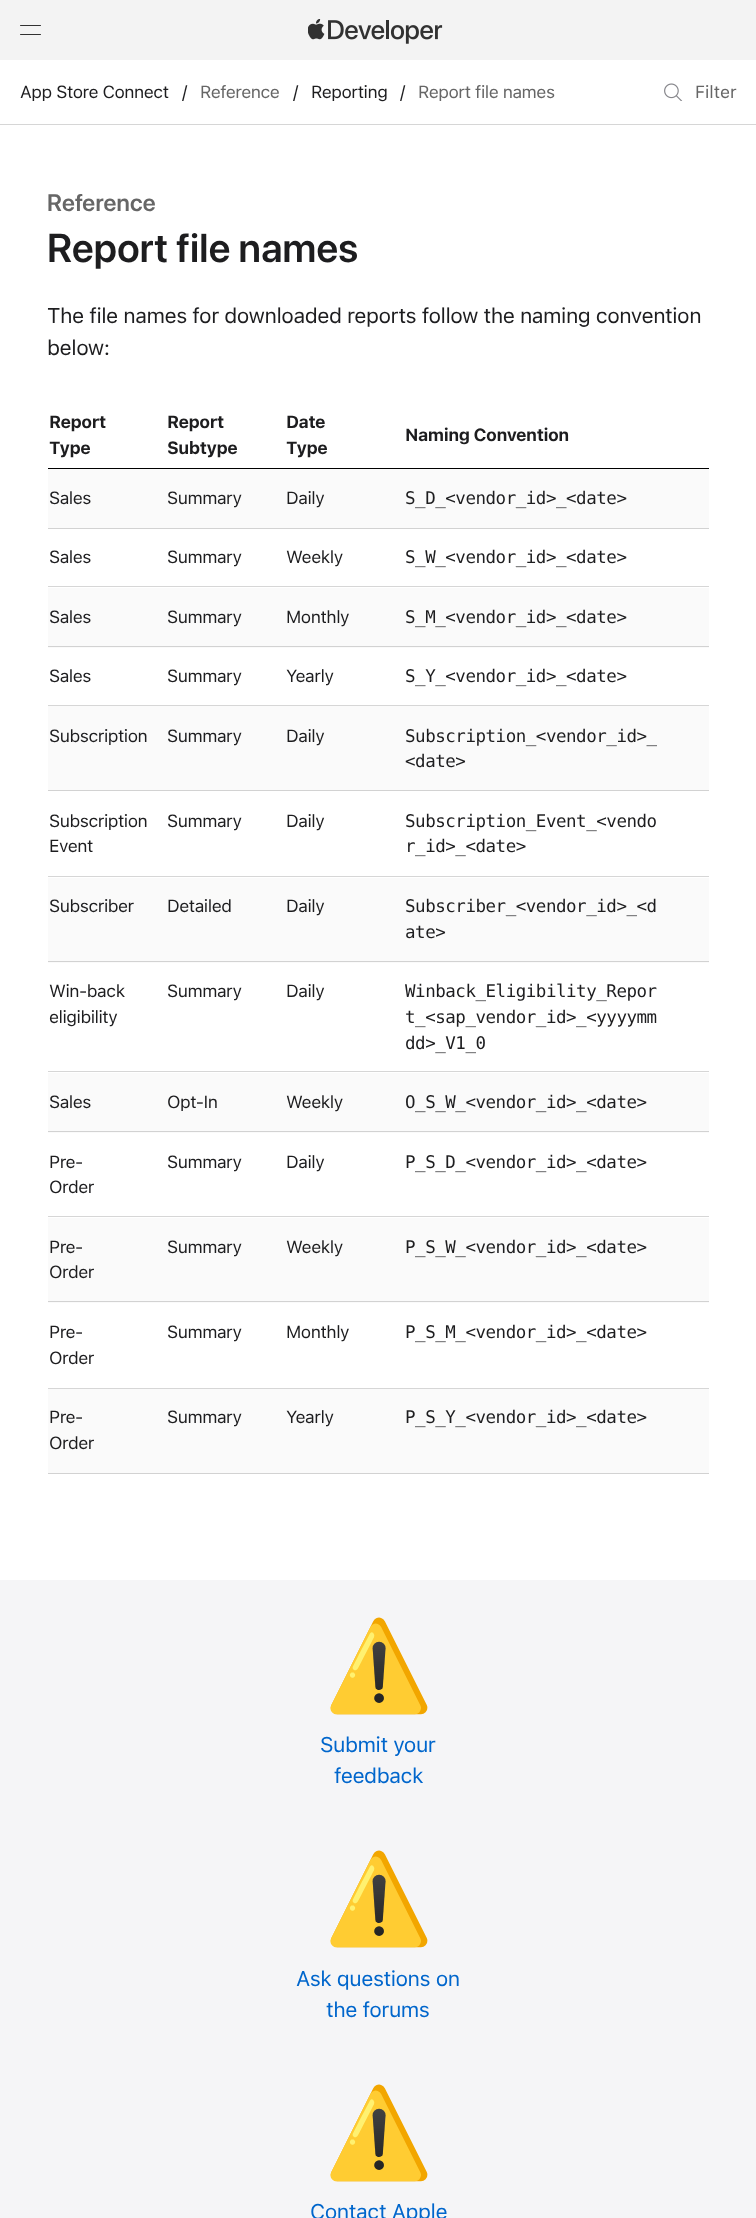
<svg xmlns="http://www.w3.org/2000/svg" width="756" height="2218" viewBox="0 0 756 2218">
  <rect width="100%" height="100%" fill="rgb(255,255,255)"/>
  <rect x="0" y="0" width="756" height="60" fill="rgb(243,243,243)"/>
  <rect x="20" y="25" width="21" height="1" rx="0.5" fill="rgb(49,49,49)"/>
  <rect x="20" y="34" width="21" height="1" rx="0.5" fill="rgb(49,49,49)"/>
  <image x="308" y="19" width="135" height="25" href="pic1.png"/>
  <rect x="0" y="124" width="756" height="1" fill="rgb(214,214,214)"/>
  <g font-family="SF Pro Text" font-size="17.5" letter-spacing="-0.47" fill="rgb(29,29,31)">
    <text x="20" y="98">App Store Connect</text>
    <text x="182" y="98">/</text>
  </g>
  <text x="200" y="98" font-family="SF Pro Text" font-size="17.5" letter-spacing="-0.47" fill="rgb(102,102,102)">Reference</text>
  <g font-family="SF Pro Text" font-size="17.5" letter-spacing="-0.47" fill="rgb(29,29,31)">
    <text x="293" y="98">/</text>
    <text x="311" y="98">Reporting</text>
    <text x="400" y="98">/</text>
  </g>
  <text x="418" y="98" font-family="SF Pro Text" font-size="17.5" letter-spacing="-0.47" fill="rgb(102,102,102)">Report file names</text>
  <image x="664" y="83" width="19" height="18" href="pic2.png"/>
  <text x="695" y="98" font-family="SF Pro Text" font-size="17.5" fill="rgb(102,102,102)">Filter</text>
  <text x="47" y="211" font-family="SF Pro Display" font-size="23.75" font-weight="600" letter-spacing="0.25" fill="rgb(102,102,102)">Reference</text>
  <text x="47" y="262" font-family="SF Pro Display" font-size="40" font-weight="600" letter-spacing="0.2" fill="rgb(29,29,31)">Report file names</text>
  <g font-family="SF Pro Text" font-size="21.25" letter-spacing="-0.47" fill="rgb(29,29,31)">
    <text>
      <tspan x="47" y="323">The file names for downloaded reports follow the naming convention</tspan>
      <tspan x="47" y="355">below:</tspan>
    </text>
  </g>
  <rect x="48" y="468" width="661" height="1" fill="rgb(0,0,0)"/>
  <g font-family="SF Pro Text" font-size="17.5" font-weight="bold" letter-spacing="-0.47" fill="rgb(29,29,31)">
    <text>
      <tspan x="49" y="428">Report</tspan>
      <tspan x="49" y="454">Type</tspan>
    </text>
    <text>
      <tspan x="167" y="428">Report</tspan>
      <tspan x="167" y="454">Subtype</tspan>
    </text>
    <text>
      <tspan x="286" y="428">Date</tspan>
      <tspan x="286" y="454">Type</tspan>
    </text>
    <text x="405" y="441">Naming Convention</text>
  </g>
  <rect x="48" y="469" width="661" height="59" fill="rgb(250,250,250)"/>
  <rect x="48" y="528" width="661" height="1" fill="rgb(210,210,210)"/>
  <g font-family="SF Pro Text" font-size="17.5" letter-spacing="-0.47" fill="rgb(29,29,31)">
    <text x="49" y="504">Sales</text>
    <text x="167" y="504">Summary</text>
    <text x="286" y="504">Daily</text>
  </g>
  <text x="405" y="504" font-family="DejaVu Sans Mono" font-size="17.5" letter-spacing="-0.47" fill="rgb(29,29,31)">S_D_&lt;vendor_id&gt;_&lt;date&gt;</text>
  <rect x="48" y="586" width="661" height="1" fill="rgb(214,214,214)"/>
  <g font-family="SF Pro Text" font-size="17.5" letter-spacing="-0.47" fill="rgb(29,29,31)">
    <text x="49" y="563">Sales</text>
    <text x="167" y="563">Summary</text>
    <text x="286" y="563">Weekly</text>
  </g>
  <text x="405" y="563" font-family="DejaVu Sans Mono" font-size="17.5" letter-spacing="-0.47" fill="rgb(29,29,31)">S_W_&lt;vendor_id&gt;_&lt;date&gt;</text>
  <rect x="48" y="588" width="661" height="60" fill="rgb(250,250,250)"/>
  <rect x="48" y="646" width="661" height="1" fill="rgb(210,210,210)"/>
  <g font-family="SF Pro Text" font-size="17.5" letter-spacing="-0.47" fill="rgb(29,29,31)">
    <text x="49" y="623">Sales</text>
    <text x="167" y="623">Summary</text>
    <text x="286" y="623">Monthly</text>
  </g>
  <text x="405" y="623" font-family="DejaVu Sans Mono" font-size="17.5" letter-spacing="-0.47" fill="rgb(29,29,31)">S_M_&lt;vendor_id&gt;_&lt;date&gt;</text>
  <rect x="48" y="705" width="661" height="1" fill="rgb(214,214,214)"/>
  <g font-family="SF Pro Text" font-size="17.5" letter-spacing="-0.47" fill="rgb(29,29,31)">
    <text x="49" y="682">Sales</text>
    <text x="167" y="682">Summary</text>
    <text x="286" y="682">Yearly</text>
  </g>
  <text x="405" y="682" font-family="DejaVu Sans Mono" font-size="17.5" letter-spacing="-0.47" fill="rgb(29,29,31)">S_Y_&lt;vendor_id&gt;_&lt;date&gt;</text>
  <rect x="48" y="706" width="661" height="84" fill="rgb(250,250,250)"/>
  <rect x="48" y="790" width="661" height="1" fill="rgb(210,210,210)"/>
  <g font-family="SF Pro Text" font-size="17.5" letter-spacing="-0.47" fill="rgb(29,29,31)">
    <text x="49" y="742">Subscription</text>
    <text x="167" y="742">Summary</text>
    <text x="286" y="742">Daily</text>
  </g>
  <g font-family="DejaVu Sans Mono" font-size="17.5" letter-spacing="-0.47" fill="rgb(29,29,31)">
    <text>
      <tspan x="405" y="742">Subscription_&lt;vendor_id&gt;_</tspan>
      <tspan x="405" y="767">&lt;date&gt;</tspan>
    </text>
  </g>
  <rect x="48" y="876" width="661" height="1" fill="rgb(214,214,214)"/>
  <g font-family="SF Pro Text" font-size="17.5" letter-spacing="-0.47" fill="rgb(29,29,31)">
    <text>
      <tspan x="49" y="827">Subscription</tspan>
      <tspan x="49" y="852">Event</tspan>
    </text>
    <text x="167" y="827">Summary</text>
    <text x="286" y="827">Daily</text>
  </g>
  <g font-family="DejaVu Sans Mono" font-size="17.5" letter-spacing="-0.47" fill="rgb(29,29,31)">
    <text>
      <tspan x="405" y="827">Subscription_Event_&lt;vendo</tspan>
      <tspan x="405" y="852">r_id&gt;_&lt;date&gt;</tspan>
    </text>
  </g>
  <rect x="48" y="878" width="661" height="85" fill="rgb(250,250,250)"/>
  <rect x="48" y="961" width="661" height="1" fill="rgb(210,210,210)"/>
  <g font-family="SF Pro Text" font-size="17.5" letter-spacing="-0.47" fill="rgb(29,29,31)">
    <text x="49" y="912">Subscriber</text>
    <text x="167" y="912">Detailed</text>
    <text x="286" y="912">Daily</text>
  </g>
  <g font-family="DejaVu Sans Mono" font-size="17.5" letter-spacing="-0.47" fill="rgb(29,29,31)">
    <text>
      <tspan x="405" y="912">Subscriber_&lt;vendor_id&gt;_&lt;d</tspan>
      <tspan x="405" y="938">ate&gt;</tspan>
    </text>
  </g>
  <rect x="48" y="1071" width="661" height="1" fill="rgb(214,214,214)"/>
  <g font-family="SF Pro Text" font-size="17.5" letter-spacing="-0.47" fill="rgb(29,29,31)">
    <text>
      <tspan x="49" y="997">Win-back</tspan>
      <tspan x="49" y="1023">eligibility</tspan>
    </text>
    <text x="167" y="997">Summary</text>
    <text x="286" y="997">Daily</text>
  </g>
  <g font-family="DejaVu Sans Mono" font-size="17.5" letter-spacing="-0.47" fill="rgb(29,29,31)">
    <text>
      <tspan x="405" y="997">Winback_Eligibility_Repor</tspan>
      <tspan x="405" y="1023">t_&lt;sap_vendor_id&gt;_&lt;yyyymm</tspan>
      <tspan x="405" y="1049">dd&gt;_V1_0</tspan>
    </text>
  </g>
  <rect x="48" y="1073" width="661" height="60" fill="rgb(250,250,250)"/>
  <rect x="48" y="1131" width="661" height="1" fill="rgb(210,210,210)"/>
  <g font-family="SF Pro Text" font-size="17.5" letter-spacing="-0.47" fill="rgb(29,29,31)">
    <text x="49" y="1108">Sales</text>
    <text x="167" y="1108">Opt-In</text>
    <text x="286" y="1108">Weekly</text>
  </g>
  <text x="405" y="1108" font-family="DejaVu Sans Mono" font-size="17.5" letter-spacing="-0.47" fill="rgb(29,29,31)">O_S_W_&lt;vendor_id&gt;_&lt;date&gt;</text>
  <rect x="48" y="1216" width="661" height="1" fill="rgb(214,214,214)"/>
  <g font-family="SF Pro Text" font-size="17.5" letter-spacing="-0.47" fill="rgb(29,29,31)">
    <text>
      <tspan x="49" y="1168">Pre-</tspan>
      <tspan x="49" y="1193">Order</tspan>
    </text>
    <text x="167" y="1168">Summary</text>
    <text x="286" y="1168">Daily</text>
  </g>
  <text x="405" y="1168" font-family="DejaVu Sans Mono" font-size="17.5" letter-spacing="-0.47" fill="rgb(29,29,31)">P_S_D_&lt;vendor_id&gt;_&lt;date&gt;</text>
  <rect x="48" y="1218" width="661" height="85" fill="rgb(250,250,250)"/>
  <rect x="48" y="1301" width="661" height="1" fill="rgb(210,210,210)"/>
  <g font-family="SF Pro Text" font-size="17.5" letter-spacing="-0.47" fill="rgb(29,29,31)">
    <text>
      <tspan x="49" y="1253">Pre-</tspan>
      <tspan x="49" y="1278">Order</tspan>
    </text>
    <text x="167" y="1253">Summary</text>
    <text x="286" y="1253">Weekly</text>
  </g>
  <text x="405" y="1253" font-family="DejaVu Sans Mono" font-size="17.5" letter-spacing="-0.47" fill="rgb(29,29,31)">P_S_W_&lt;vendor_id&gt;_&lt;date&gt;</text>
  <rect x="48" y="1388" width="661" height="1" fill="rgb(214,214,214)"/>
  <g font-family="SF Pro Text" font-size="17.5" letter-spacing="-0.47" fill="rgb(29,29,31)">
    <text>
      <tspan x="49" y="1338">Pre-</tspan>
      <tspan x="49" y="1364">Order</tspan>
    </text>
    <text x="167" y="1338">Summary</text>
    <text x="286" y="1338">Monthly</text>
  </g>
  <text x="405" y="1338" font-family="DejaVu Sans Mono" font-size="17.5" letter-spacing="-0.47" fill="rgb(29,29,31)">P_S_M_&lt;vendor_id&gt;_&lt;date&gt;</text>
  <rect x="48" y="1389" width="661" height="84" fill="rgb(250,250,250)"/>
  <rect x="48" y="1473" width="661" height="1" fill="rgb(210,210,210)"/>
  <g font-family="SF Pro Text" font-size="17.5" letter-spacing="-0.47" fill="rgb(29,29,31)">
    <text>
      <tspan x="49" y="1423">Pre-</tspan>
      <tspan x="49" y="1449">Order</tspan>
    </text>
    <text x="167" y="1423">Summary</text>
    <text x="286" y="1423">Yearly</text>
  </g>
  <text x="405" y="1423" font-family="DejaVu Sans Mono" font-size="17.5" letter-spacing="-0.47" fill="rgb(29,29,31)">P_S_Y_&lt;vendor_id&gt;_&lt;date&gt;</text>
  <rect x="0" y="1580" width="756" height="638" fill="rgb(245,245,247)"/>
  <text x="324" y="1696" font-family="Noto Color Emoji" font-size="88" letter-spacing="-0.47" fill="rgb(0,113,227)">⚠️</text>
  <g font-family="SF Pro Text" font-size="21.25" letter-spacing="-0.47" fill="rgb(0,102,204)">
    <text x="320" y="1752">Submit your</text>
    <text x="334" y="1783">feedback</text>
  </g>
  <text x="324" y="1929" font-family="Noto Color Emoji" font-size="88" letter-spacing="-0.47" fill="rgb(0,113,227)">⚠️</text>
  <g font-family="SF Pro Text" font-size="21.25" letter-spacing="-0.47" fill="rgb(0,102,204)">
    <text x="296" y="1986">Ask questions on</text>
    <text x="326" y="2017">the forums</text>
  </g>
  <text x="324" y="2163" font-family="Noto Color Emoji" font-size="88" letter-spacing="-0.47" fill="rgb(0,113,227)">⚠️</text>
  <text x="310" y="2219" font-family="SF Pro Text" font-size="21.25" letter-spacing="-0.47" fill="rgb(0,102,204)">Contact Apple</text>
</svg>
